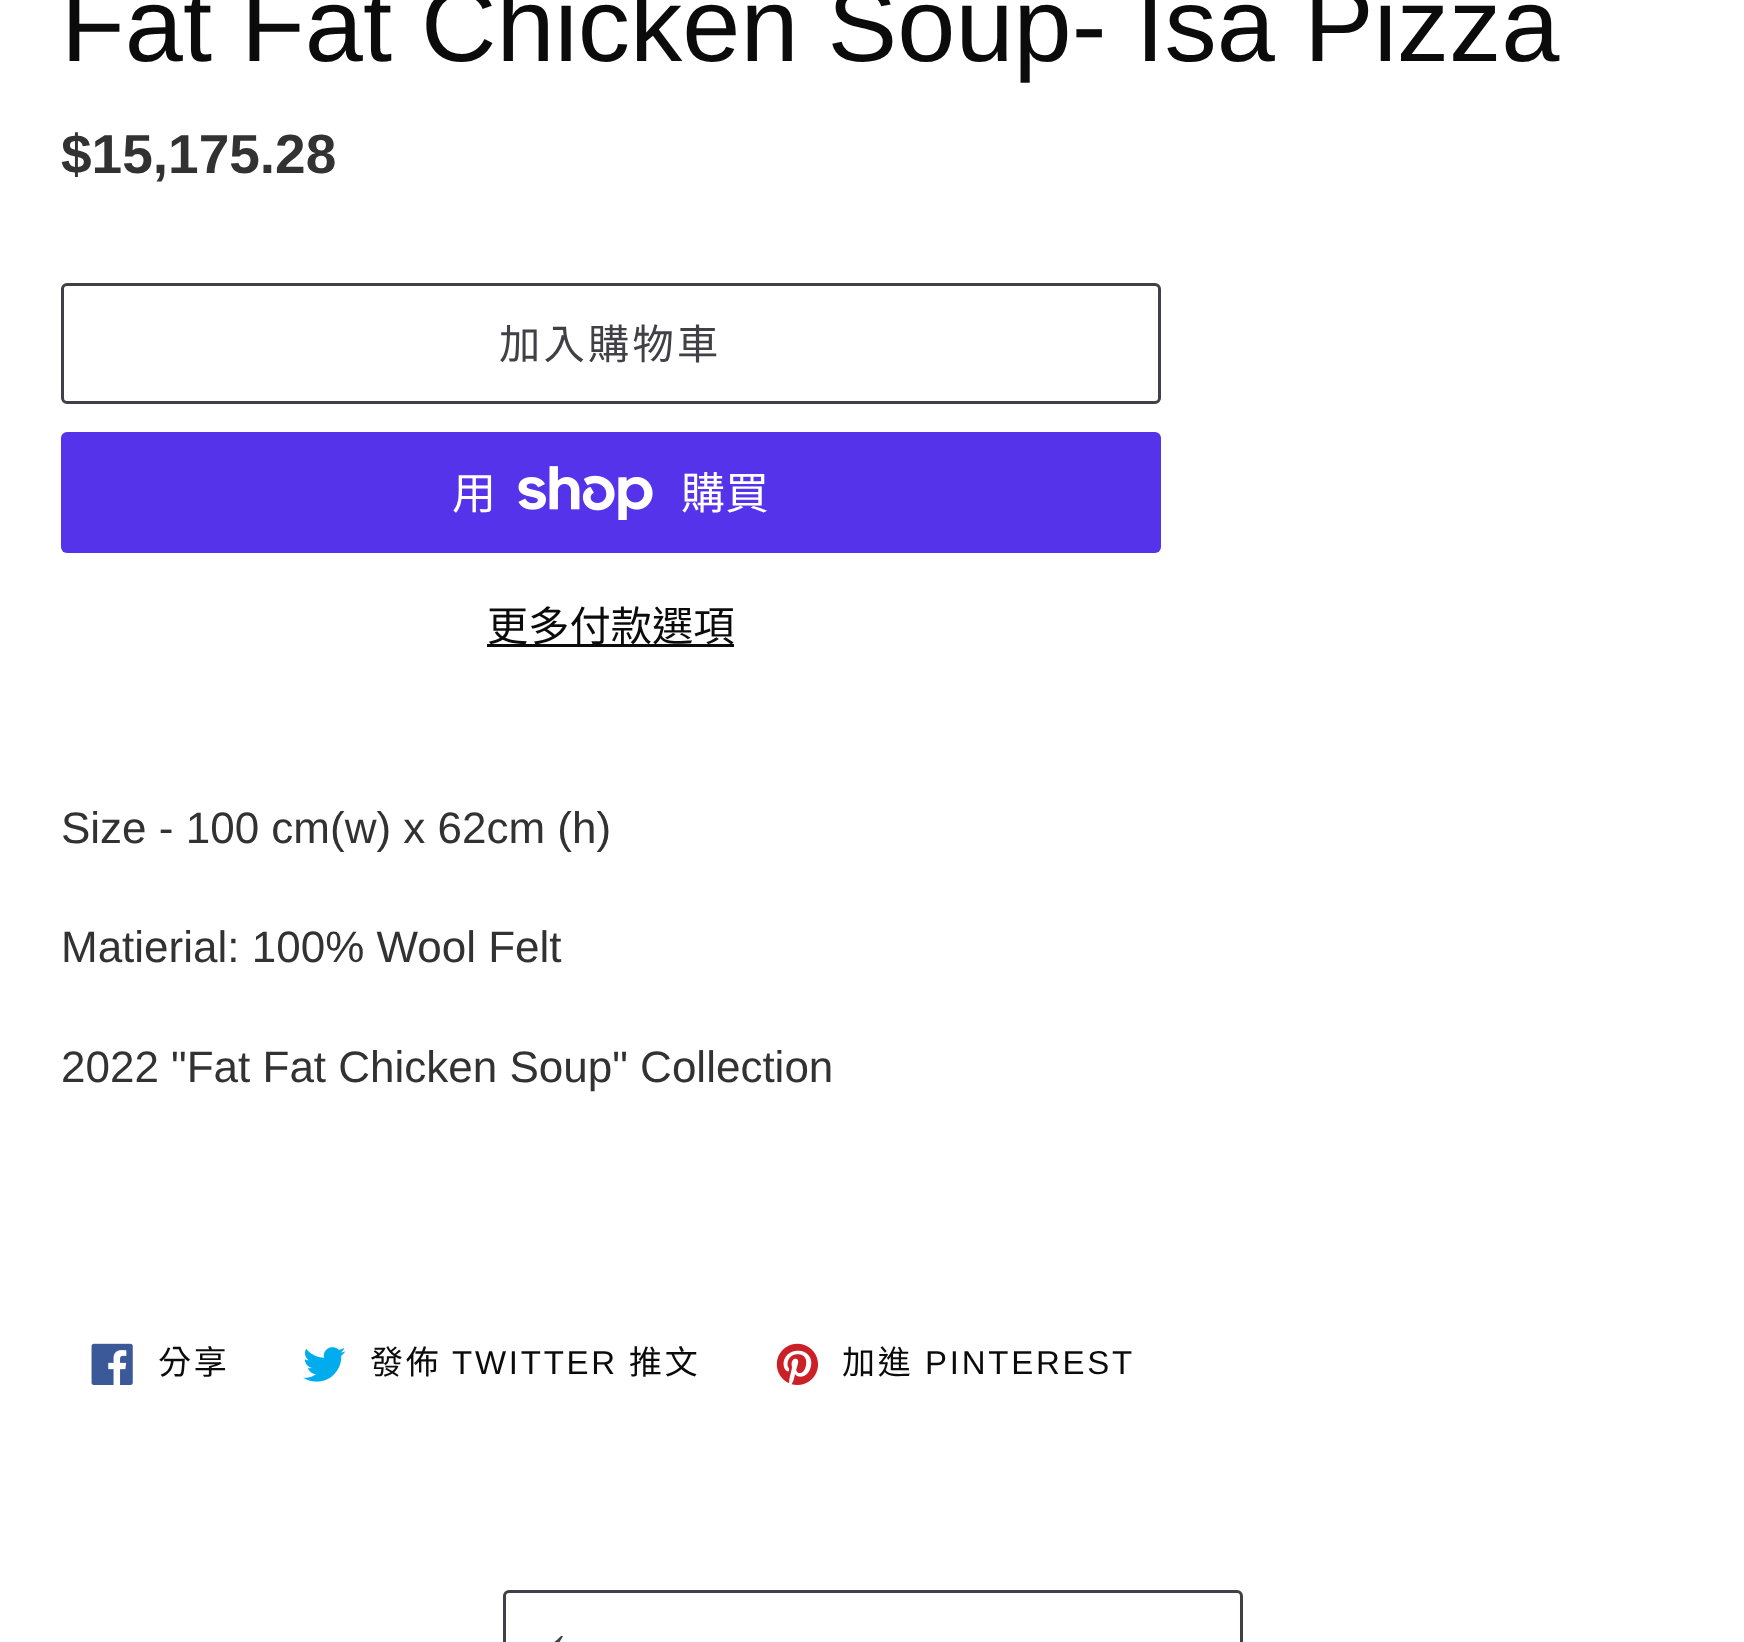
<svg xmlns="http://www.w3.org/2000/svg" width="1744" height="1642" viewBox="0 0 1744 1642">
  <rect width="100%" height="100%" fill="rgb(255,255,255)"/>
  <text x="61" y="61" font-family="Liberation Sans" font-size="104.5" fill="rgb(11,11,12)">Fat Fat Chicken Soup- Isa Pizza</text>
  <text x="61" y="173" font-family="Liberation Sans" font-size="55" font-weight="bold" fill="rgb(51,50,50)">$15,175.28</text>
  <rect x="62.5" y="284.5" width="1097" height="118" rx="4.5" fill="none" stroke="rgb(64,64,70)" stroke-width="3"/>
  <text x="499" y="359" font-family="Noto Sans CJK TC" font-size="41.25" letter-spacing="3.25" fill="rgb(64,64,70)">加入購物車</text>
  <rect x="61" y="432" width="1100" height="121" rx="6" fill="rgb(84,51,235)"/>
  <text x="452" y="509" font-family="Noto Sans CJK TC" font-size="44" fill="rgb(255,255,255)">用</text>
  <image x="518" y="466" width="135" height="54" href="pic1.png"/>
  <text x="681" y="509" font-family="Noto Sans CJK TC" font-size="44" fill="rgb(255,255,255)">購買</text>
  <rect x="487" y="644" width="247" height="3" fill="rgb(11,11,12)"/>
  <text x="487" y="641" font-family="Noto Sans CJK TC" font-size="41.25" fill="rgb(11,11,12)">更多付款選項</text>
  <g font-family="Liberation Sans" font-size="44" fill="rgb(51,50,50)">
    <text x="61" y="843">Size - 100 cm(w) x 62cm (h)</text>
    <text x="61" y="962">Matierial: 100% Wool Felt</text>
    <text x="61" y="1082">2022 "Fat Fat Chicken Soup" Collection</text>
  </g>
  <image x="91" y="1343" width="42" height="42" href="pic2.png"/>
  <text x="158" y="1374" font-family="Noto Sans CJK TC" font-size="33" letter-spacing="2.75" fill="rgb(11,11,12)">分享</text>
  <image x="303" y="1347" width="43" height="35" href="pic3.png"/>
  <text x="370" y="1374" font-family="Noto Sans CJK TC" font-size="33" letter-spacing="2.75" fill="rgb(11,11,12)">發佈</text>
  <text x="452" y="1374" font-family="Liberation Sans" font-size="33" letter-spacing="2.75" fill="rgb(11,11,12)">TWITTER</text>
  <text x="629" y="1374" font-family="Noto Sans CJK TC" font-size="33" letter-spacing="2.75" fill="rgb(11,11,12)">推文</text>
  <image x="776" y="1343" width="42" height="42" href="pic4.png"/>
  <text x="842" y="1374" font-family="Noto Sans CJK TC" font-size="33" letter-spacing="2.75" fill="rgb(11,11,12)">加進</text>
  <text x="925" y="1374" font-family="Liberation Sans" font-size="33" letter-spacing="2.75" fill="rgb(11,11,12)">PINTEREST</text>
  <rect x="504.5" y="1591.5" width="737" height="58" rx="4.5" fill="none" stroke="rgb(64,64,70)" stroke-width="3"/>
  <path d="M560 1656C557 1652 554 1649 549 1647V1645C554 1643 557 1640 561 1636H563C561 1640 559 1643 557 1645H600V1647H557L563 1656Z" fill="rgb(64,64,70)" fill-rule="evenodd"/>
</svg>
